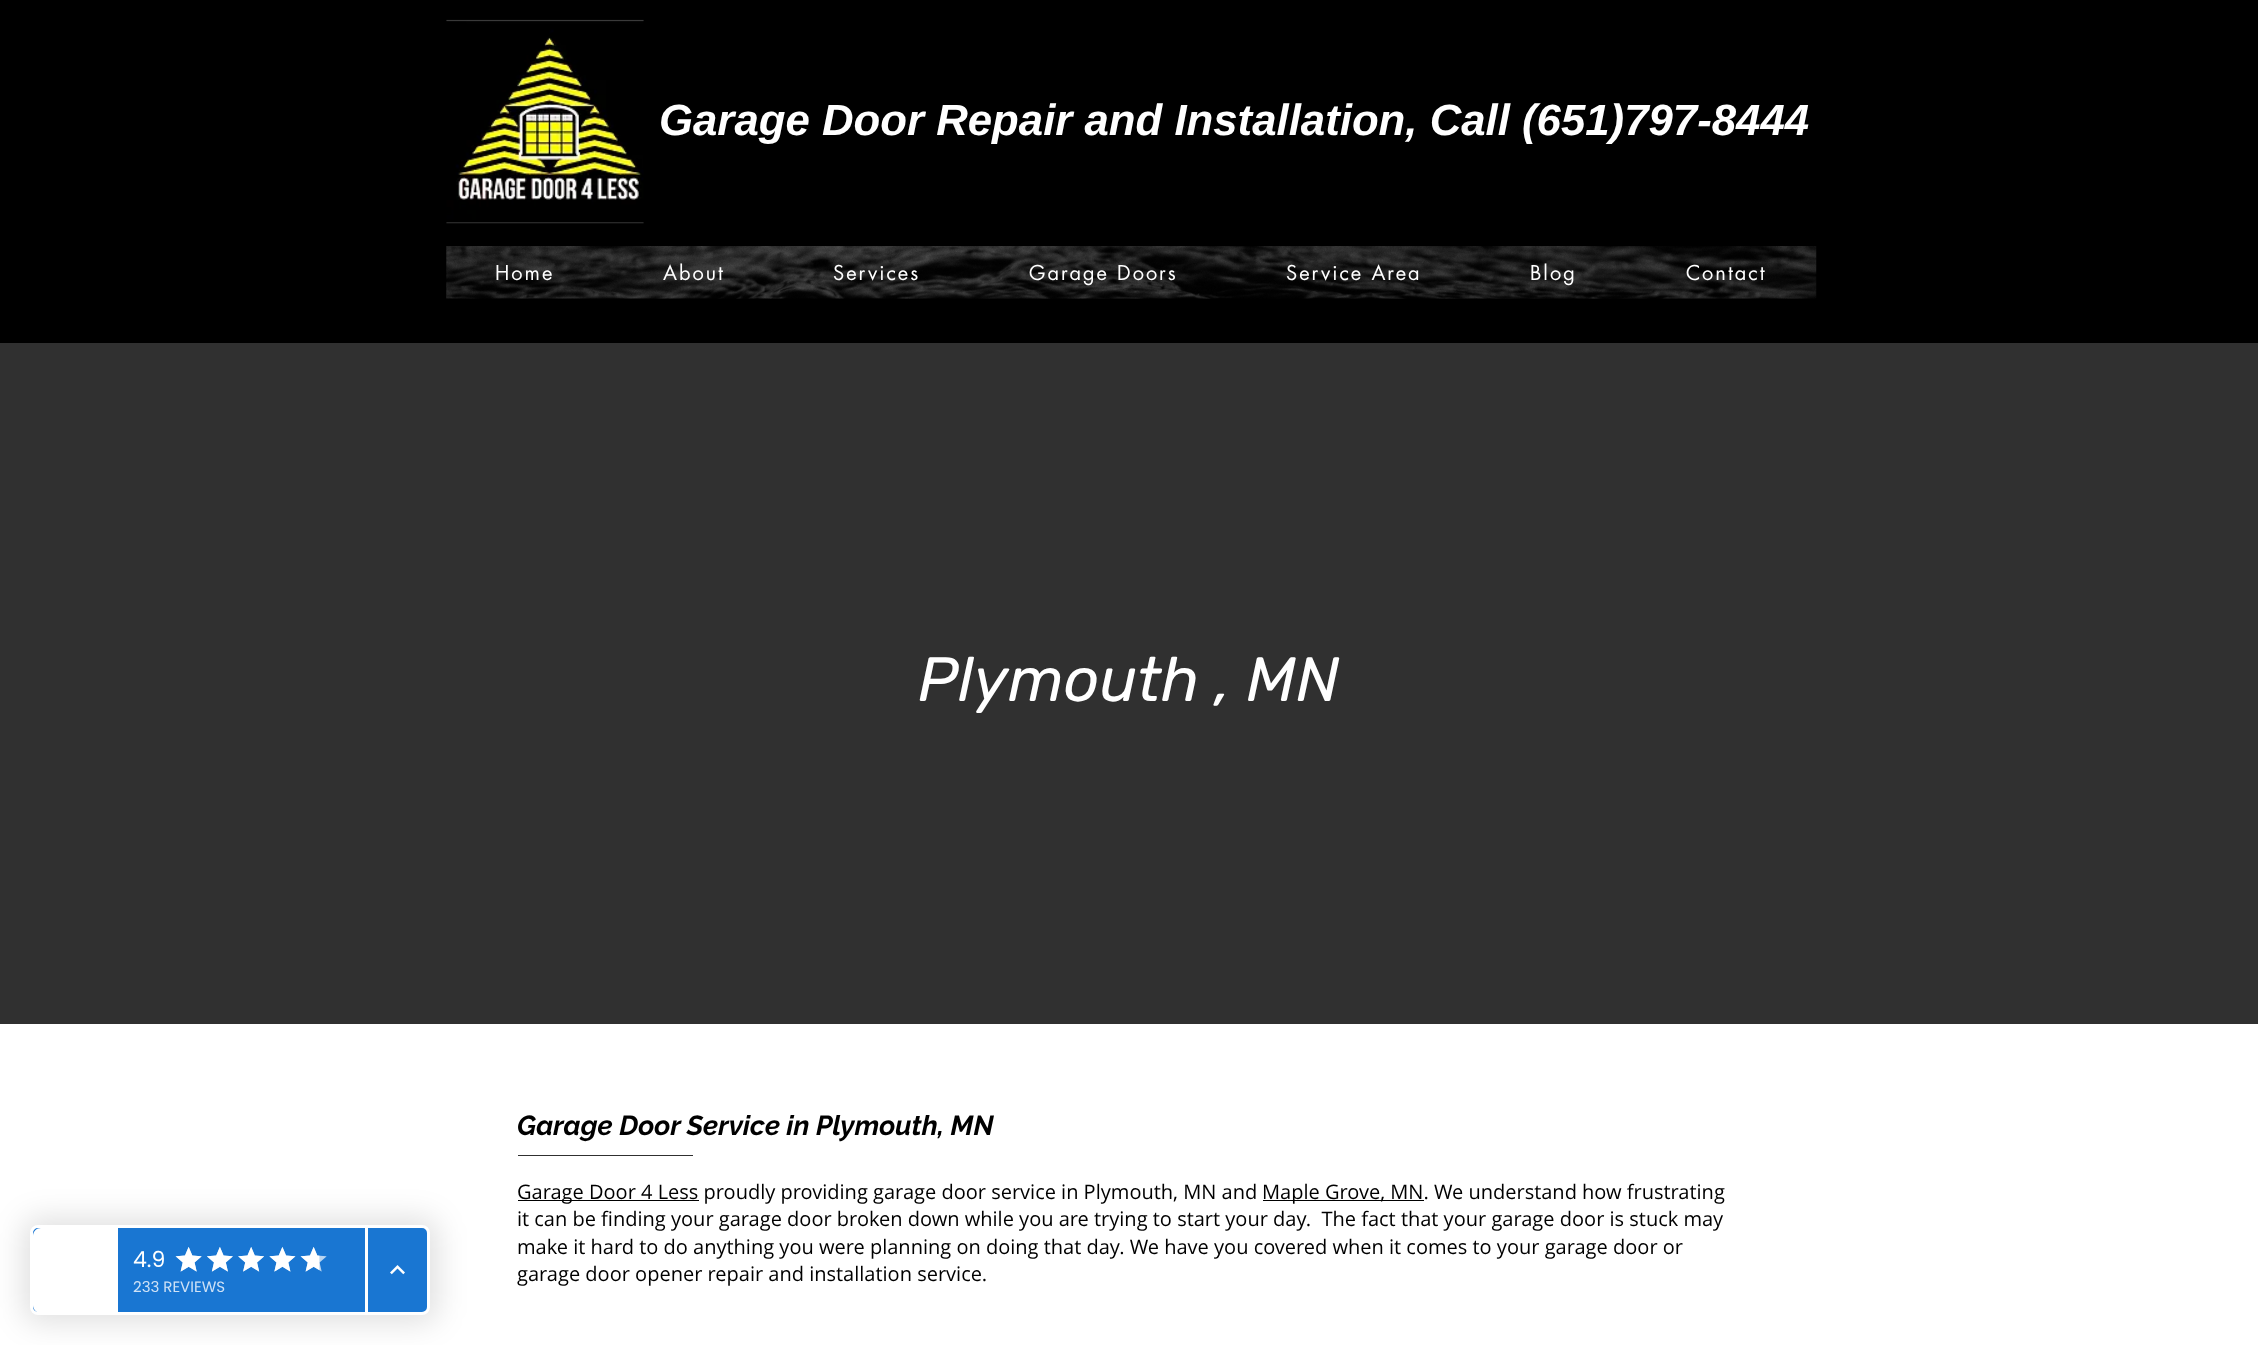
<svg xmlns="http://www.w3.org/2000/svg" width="2258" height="1345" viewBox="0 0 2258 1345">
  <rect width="100%" height="100%" fill="rgb(0,0,0)"/>
  <rect x="0" y="1024" width="2258" height="321" fill="rgb(255,255,255)"/>
  <rect x="23" y="1218" width="415" height="105" rx="15" fill="rgba(0,0,0,0.12)" filter="blur(15px)"/>
  <rect x="31.5" y="1226.5" width="397" height="87" rx="6.5" fill="rgb(25,118,210)" stroke="rgb(255,255,255)" stroke-width="3"/>
  <path d="M41 1228H118V1313H41C36.5 1313 33 1309.5 33 1305V1236C33 1231.5 36.5 1228 41 1228Z" fill="rgb(255,255,255)"/>
  <rect x="365" y="1228" width="3" height="85" fill="rgb(255,255,255)"/>
  <text x="133" y="1267" font-family="Poppins" font-size="22" fill="rgb(255,255,255)">4.9</text>
  <image x="175" y="1247" width="27" height="25" href="pic1.png"/>
  <image x="175" y="1247" width="27" height="25" href="pic2.png"/>
  <image x="207" y="1247" width="26" height="25" href="pic3.png"/>
  <image x="207" y="1247" width="26" height="25" href="pic4.png"/>
  <image x="238" y="1247" width="26" height="25" href="pic5.png"/>
  <image x="238" y="1247" width="26" height="25" href="pic6.png"/>
  <image x="269" y="1247" width="27" height="25" href="pic7.png"/>
  <image x="269" y="1247" width="27" height="25" href="pic8.png"/>
  <image x="300" y="1247" width="27" height="25" href="pic1.png"/>
  <image x="300" y="1247" width="20" height="25" href="pic9.png"/>
  <text x="133" y="1292" font-family="Poppins" font-size="15" fill="rgb(207,226,246)">233 REVIEWS</text>
  <image x="390" y="1265" width="15" height="10" href="pic10.png"/>
  <image x="446" y="19" width="198" height="205" href="pic11.png"/>
  <text x="659" y="135" font-family="Liberation Sans" font-size="43.75" font-weight="bold" font-style="italic" fill="rgb(255,255,255)">Garage Door Repair and Installation, Call (651)797-8444</text>
  <image x="446" y="246" width="1371" height="53" href="pic12.png"/>
  <g font-family="futura" font-size="20" letter-spacing="2" fill="rgb(255,255,255)">
    <text x="495" y="280">Home</text>
    <text x="663" y="280">About</text>
    <text x="833" y="280">Services</text>
    <text x="1029" y="280">Garage Doors</text>
    <text x="1286" y="280">Service Area</text>
    <text x="1530" y="280">Blog</text>
    <text x="1686" y="280">Contact</text>
  </g>
  <rect x="0" y="343" width="2258" height="681" fill="rgb(48,48,48)"/>
  <text x="918" y="701" font-family="Rubik" font-size="62.5" font-style="italic" fill="rgb(255,255,255)">Plymouth , MN</text>
  <text x="517" y="1135" font-family="Raleway" font-size="27.5" font-weight="bold" font-style="italic" fill="rgb(0,0,0)">Garage Door Service in Plymouth, MN</text>
  <rect x="518" y="1155" width="175" height="1" fill="rgb(48,48,48)"/>
  <rect x="518" y="1200" width="181" height="1" fill="rgb(0,0,0)"/>
  <text x="517" y="1199" font-family="Open Sans" font-size="20" fill="rgb(0,0,0)">Garage Door 4 Less proudly providing garage door service in Plymouth, MN and</text>
  <rect x="1263" y="1200" width="161" height="1" fill="rgb(0,0,0)"/>
  <g font-family="Open Sans" font-size="20" fill="rgb(0,0,0)">
    <text x="1262" y="1199">Maple Grove, MN. We understand how frustrating</text>
    <text xml:space="preserve"><tspan x="517" y="1226">it can be finding your garage door broken down while you are trying to start your day.  The fact that your garage door is stuck may</tspan><tspan x="517" y="1254">make it hard to do anything you were planning on doing that day. We have you covered when it comes to your garage door or</tspan><tspan x="517" y="1281">garage door opener repair and installation service.</tspan></text>
  </g>
</svg>
